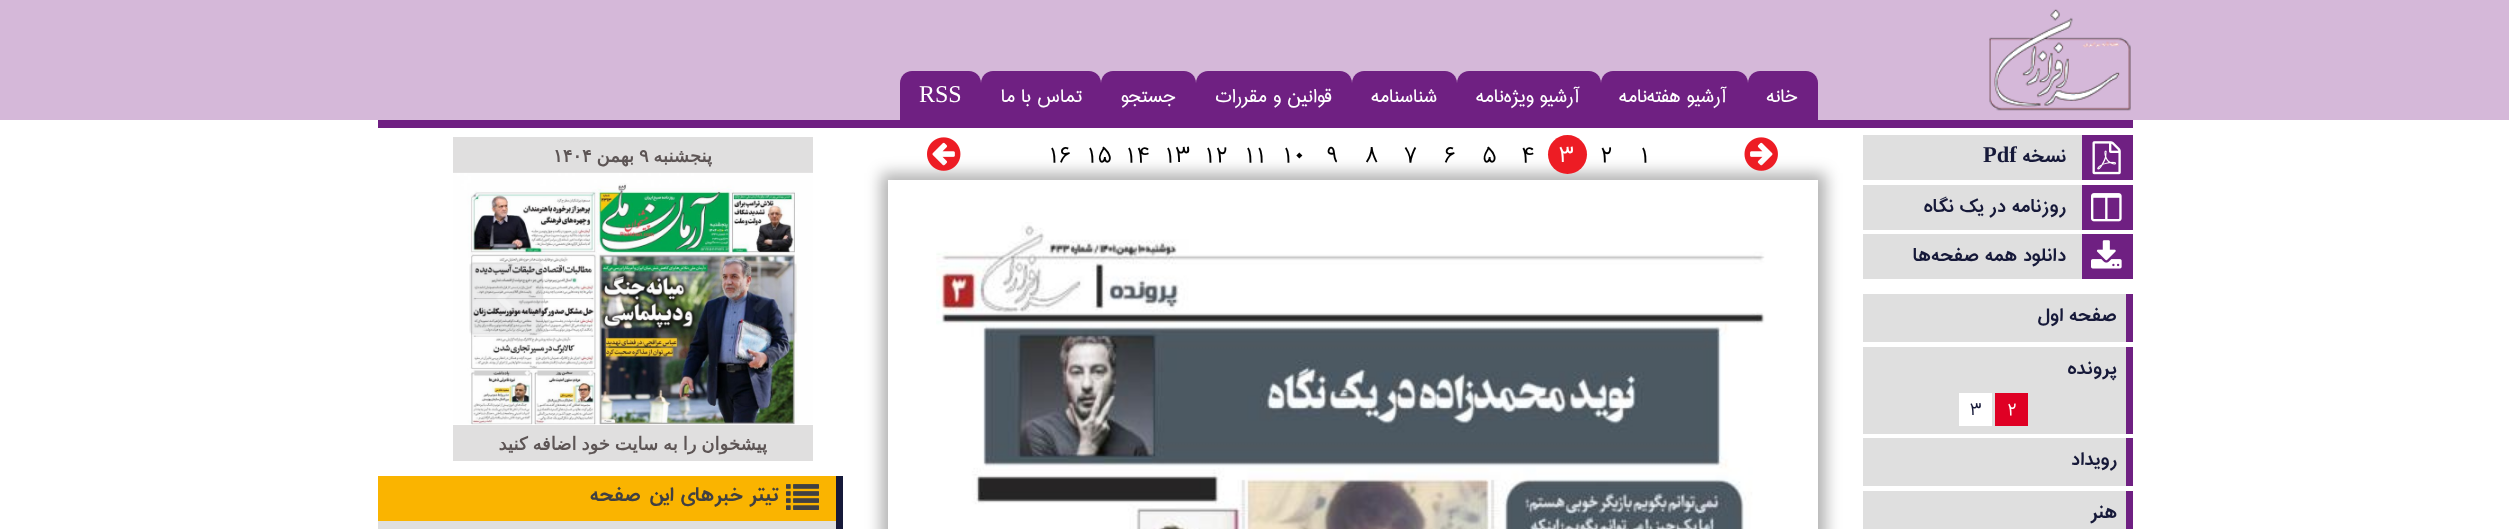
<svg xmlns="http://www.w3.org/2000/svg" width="2509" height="529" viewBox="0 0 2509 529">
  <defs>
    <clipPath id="clip1"><path d="M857 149H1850V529H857ZM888 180H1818V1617H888Z" clip-rule="evenodd"/></clipPath>
  </defs>
  <rect width="100%" height="100%" fill="rgb(255,255,255)"/>
  <rect x="0" y="0" width="2509" height="120" fill="rgb(213,184,217)"/>
  <image x="1989" y="9" width="142" height="102" href="pic1.png"/>
  <rect x="378" y="120" width="1755" height="8" fill="rgb(111,32,130)"/>
  <path d="M1760 71H1806C1812.5 71 1818 76.5 1818 83V123H1748V83C1748 76.5 1753.5 71 1760 71Z" fill="rgb(111,32,130)"/>
  <text x="1798" y="102" font-family="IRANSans" font-size="24" direction="rtl" fill="rgb(255,255,255)">خانه</text>
  <path d="M1613 71H1736C1742.5 71 1748 76.5 1748 83V123H1601V83C1601 76.5 1606.5 71 1613 71Z" fill="rgb(111,32,130)"/>
  <text x="1727" y="102" font-family="IRANSans" font-size="24" direction="rtl" fill="rgb(255,255,255)">آرشیو هفته‌نامه</text>
  <path d="M1469 71H1589C1595.5 71 1601 76.5 1601 83V123H1457V83C1457 76.5 1462.5 71 1469 71Z" fill="rgb(111,32,130)"/>
  <text x="1580" y="102" font-family="IRANSans" font-size="24" direction="rtl" fill="rgb(255,255,255)">آرشیو ویژه‌نامه</text>
  <path d="M1364 71H1445C1451.5 71 1457 76.5 1457 83V123H1352V83C1352 76.5 1357.5 71 1364 71Z" fill="rgb(111,32,130)"/>
  <text x="1437" y="102" font-family="IRANSans" font-size="24" direction="rtl" fill="rgb(255,255,255)">شناسنامه</text>
  <path d="M1208 71H1340C1346.5 71 1352 76.5 1352 83V123H1196V83C1196 76.5 1201.5 71 1208 71Z" fill="rgb(111,32,130)"/>
  <text x="1332" y="102" font-family="IRANSans" font-size="24" direction="rtl" fill="rgb(255,255,255)">قوانین و مقررات</text>
  <path d="M1113 71H1184C1190.5 71 1196 76.5 1196 83V123H1101V83C1101 76.5 1106.5 71 1113 71Z" fill="rgb(111,32,130)"/>
  <text x="1176" y="102" font-family="IRANSans" font-size="24" direction="rtl" fill="rgb(255,255,255)">جستجو</text>
  <path d="M993 71H1089C1095.5 71 1101 76.5 1101 83V123H981V83C981 76.5 986.5 71 993 71Z" fill="rgb(111,32,130)"/>
  <text x="1082" y="102" font-family="IRANSans" font-size="24" direction="rtl" fill="rgb(255,255,255)">تماس با ما</text>
  <path d="M912 71H969C975.5 71 981 76.5 981 83V123H900V83C900 76.5 905.5 71 912 71Z" fill="rgb(111,32,130)"/>
  <text x="919" y="102" font-family="Liberation Serif" font-size="24" fill="rgb(255,255,255)">RSS</text>
  <rect x="1863" y="135" width="219" height="45" fill="rgb(223,223,223)"/>
  <rect x="2082" y="135" width="51" height="45" fill="rgb(111,32,130)"/>
  <image x="2092" y="141" width="29" height="34" href="pic2.png"/>
  <text x="2066" y="162" font-family="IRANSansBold" font-size="22.5" font-weight="bold" direction="rtl" fill="rgb(22,25,57)">نسخه</text>
  <text x="1983" y="162" font-family="Liberation Serif" font-size="22.5" font-weight="bold" fill="rgb(22,25,57)">Pdf</text>
  <rect x="1863" y="185" width="219" height="45" fill="rgb(223,223,223)"/>
  <rect x="2082" y="185" width="51" height="45" fill="rgb(111,32,130)"/>
  <image x="2091" y="193" width="31" height="29" href="pic3.png"/>
  <text x="2066" y="212" font-family="IRANSansBold" font-size="22.5" font-weight="bold" direction="rtl" fill="rgb(22,25,57)">روزنامه در یک نگاه</text>
  <rect x="1863" y="234" width="219" height="45" fill="rgb(223,223,223)"/>
  <rect x="2082" y="234" width="51" height="45" fill="rgb(111,32,130)"/>
  <image x="2091" y="240" width="31" height="29" href="pic4.png"/>
  <text x="2066" y="261" font-family="IRANSansBold" font-size="22.5" font-weight="bold" direction="rtl" fill="rgb(22,25,57)">دانلود همه صفحه‌ها</text>
  <rect x="1863" y="294" width="263" height="48" fill="rgb(223,223,223)"/>
  <rect x="2126" y="294" width="7" height="48" fill="rgb(111,32,130)"/>
  <text x="2117" y="321" font-family="IRANSansBold" font-size="22.5" font-weight="bold" direction="rtl" fill="rgb(22,25,57)">صفحه اول</text>
  <rect x="1863" y="347" width="263" height="87" fill="rgb(223,223,223)"/>
  <rect x="2126" y="347" width="7" height="87" fill="rgb(111,32,130)"/>
  <text x="2117" y="374" font-family="IRANSansBold" font-size="22.5" font-weight="bold" direction="rtl" fill="rgb(22,25,57)">پرونده</text>
  <rect x="1995" y="393" width="33" height="33" fill="rgb(223,0,36)"/>
  <text x="2007" y="415" font-family="IRANSans" font-size="21" fill="rgb(255,255,255)">2</text>
  <rect x="1959" y="393" width="33" height="33" fill="rgb(255,255,255)"/>
  <text x="1970" y="415" font-family="IRANSans" font-size="21" fill="rgb(22,25,57)">3</text>
  <rect x="1863" y="438" width="263" height="48" fill="rgb(223,223,223)"/>
  <rect x="2126" y="438" width="7" height="48" fill="rgb(111,32,130)"/>
  <text x="2117" y="465" font-family="IRANSansBold" font-size="22.5" font-weight="bold" direction="rtl" fill="rgb(22,25,57)">رویداد</text>
  <rect x="1863" y="491" width="263" height="38" fill="rgb(223,223,223)"/>
  <rect x="2126" y="491" width="7" height="38" fill="rgb(111,32,130)"/>
  <text x="2117" y="518" font-family="IRANSansBold" font-size="22.5" font-weight="bold" direction="rtl" fill="rgb(22,25,57)">هنر</text>
  <g clip-path="url(#clip1)">
    <rect x="881" y="173" width="945" height="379" fill="rgba(0,0,0,0.3)" filter="blur(7.5px)"/>
  </g>
  <image x="1744" y="137" width="34" height="34" href="pic5.png"/>
  <g font-family="IRANSans" font-size="27" fill="rgb(0,0,0)">
    <text x="1639" y="162">1</text>
    <text x="1600" y="162">2</text>
  </g>
  <circle cx="1567.5" cy="154.5" r="19.5" fill="rgb(237,28,36)"/>
  <text x="1559" y="162" font-family="IRANSans" font-size="27" fill="rgb(255,255,255)">3</text>
  <g font-family="IRANSans" font-size="27" fill="rgb(0,0,0)">
    <text x="1521" y="162">4</text>
    <text x="1482" y="162">5</text>
    <text x="1444" y="162">6</text>
    <text x="1404" y="162">7</text>
    <text x="1365" y="162">8</text>
    <text x="1326" y="162">9</text>
    <text x="1282" y="162">10</text>
    <text x="1244" y="162">11</text>
    <text x="1204" y="162">12</text>
    <text x="1164" y="162">13</text>
    <text x="1125" y="162">14</text>
    <text x="1086" y="162">15</text>
    <text x="1048" y="162">16</text>
  </g>
  <image x="927" y="137" width="34" height="34" href="pic6.png"/>
  <image x="936" y="222" width="829" height="307" href="pic7.png"/>
  <rect x="453" y="137" width="360" height="36" fill="rgb(224,223,223)"/>
  <text x="712" y="162" font-family="DejaVu Sans" font-size="18" font-weight="bold" direction="rtl" fill="rgb(93,85,85)">پنجشنبه</text>
  <text x="639" y="162" font-family="DejaVu Sans" font-size="18" font-weight="bold" fill="rgb(93,85,85)">۹</text>
  <text x="634" y="162" font-family="DejaVu Sans" font-size="18" font-weight="bold" direction="rtl" fill="rgb(93,85,85)">بهمن</text>
  <text x="553" y="162" font-family="DejaVu Sans" font-size="18" font-weight="bold" fill="rgb(93,85,85)">۱۴۰۴</text>
  <image x="453" y="172" width="360" height="253" href="pic8.png"/>
  <image x="722" y="262" width="75" height="74" href="pic9.png"/>
  <image x="469" y="262" width="75" height="73" href="pic10.png"/>
  <rect x="453" y="425" width="360" height="36" fill="rgb(224,223,223)"/>
  <text x="767" y="450" word-spacing="-0.75" font-family="DejaVu Sans" font-size="18" font-weight="bold" direction="rtl" fill="rgb(93,85,85)">پیشخوان را به سایت خود اضافه کنید</text>
  <rect x="378" y="521" width="458" height="8" fill="rgb(223,223,223)"/>
  <rect x="836" y="476" width="7" height="53" fill="rgb(22,25,57)"/>
  <rect x="378" y="476" width="458" height="45" fill="rgb(250,180,0)"/>
  <image x="786" y="484" width="33" height="26" href="pic11.png"/>
  <text x="779" y="501" font-family="IRANSansBold" font-size="24" font-weight="bold" direction="rtl" fill="rgb(64,64,66)">تیتر خبرهای این صفحه</text>
</svg>
